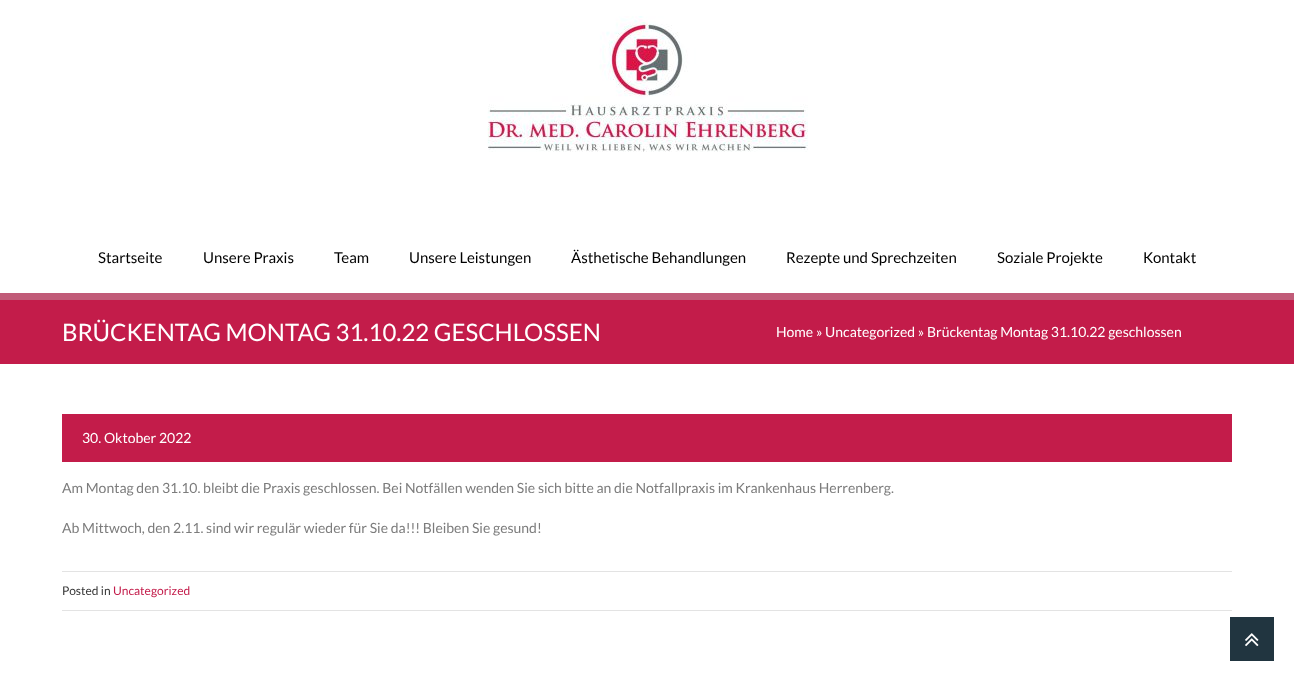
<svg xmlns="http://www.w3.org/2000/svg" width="1294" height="687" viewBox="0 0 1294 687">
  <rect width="100%" height="100%" fill="rgb(255,255,255)"/>
  <image x="487" y="16" width="321" height="136" href="pic1.png"/>
  <g font-family="Lato" font-size="15" fill="rgb(0,0,0)">
    <text x="98" y="263">Startseite</text>
    <text x="203" y="263">Unsere Praxis</text>
    <text x="334" y="263">Team</text>
    <text x="409" y="263">Unsere Leistungen</text>
    <text x="571" y="263">Ästhetische Behandlungen</text>
    <text x="786" y="263">Rezepte und Sprechzeiten</text>
    <text x="997" y="263">Soziale Projekte</text>
    <text x="1143" y="263">Kontakt</text>
  </g>
  <rect x="0" y="300" width="1294" height="64" fill="rgb(195,28,74)"/>
  <rect x="0" y="293" width="1294" height="7" fill="rgb(193,91,120)"/>
  <text x="62" y="341" font-family="Lato" font-size="24" fill="rgb(255,255,255)">BRÜCKENTAG MONTAG 31.10.22 GESCHLOSSEN</text>
  <text x="776" y="337" font-family="Lato" font-size="14" fill="rgb(255,255,255)">Home » Uncategorized » Brückentag Montag 31.10.22 geschlossen</text>
  <rect x="62" y="414" width="1170" height="48" fill="rgb(195,28,74)"/>
  <text x="82" y="443" font-family="Lato" font-size="14" fill="rgb(255,255,255)">30. Oktober 2022</text>
  <g font-family="Lato" font-size="14" fill="rgb(124,124,124)">
    <text x="62" y="493">Am Montag den 31.10. bleibt die Praxis geschlossen. Bei Notfällen wenden Sie sich bitte an die Notfallpraxis im Krankenhaus Herrenberg.</text>
    <text x="62" y="533">Ab Mittwoch, den 2.11. sind wir regulär wieder für Sie da!!! Bleiben Sie gesund!</text>
  </g>
  <rect x="62" y="571" width="1170" height="1" fill="rgb(227,227,227)"/>
  <rect x="62" y="610" width="1170" height="1" fill="rgb(227,227,227)"/>
  <text x="62" y="595" font-family="Lato" font-size="12" fill="rgb(55,55,55)">Posted in</text>
  <text x="113" y="595" font-family="Lato" font-size="12" fill="rgb(195,28,74)">Uncategorized</text>
  <rect x="1230" y="617" width="44" height="44" fill="rgb(33,53,64)"/>
  <image x="1245" y="633" width="14" height="14" href="pic2.png"/>
</svg>
